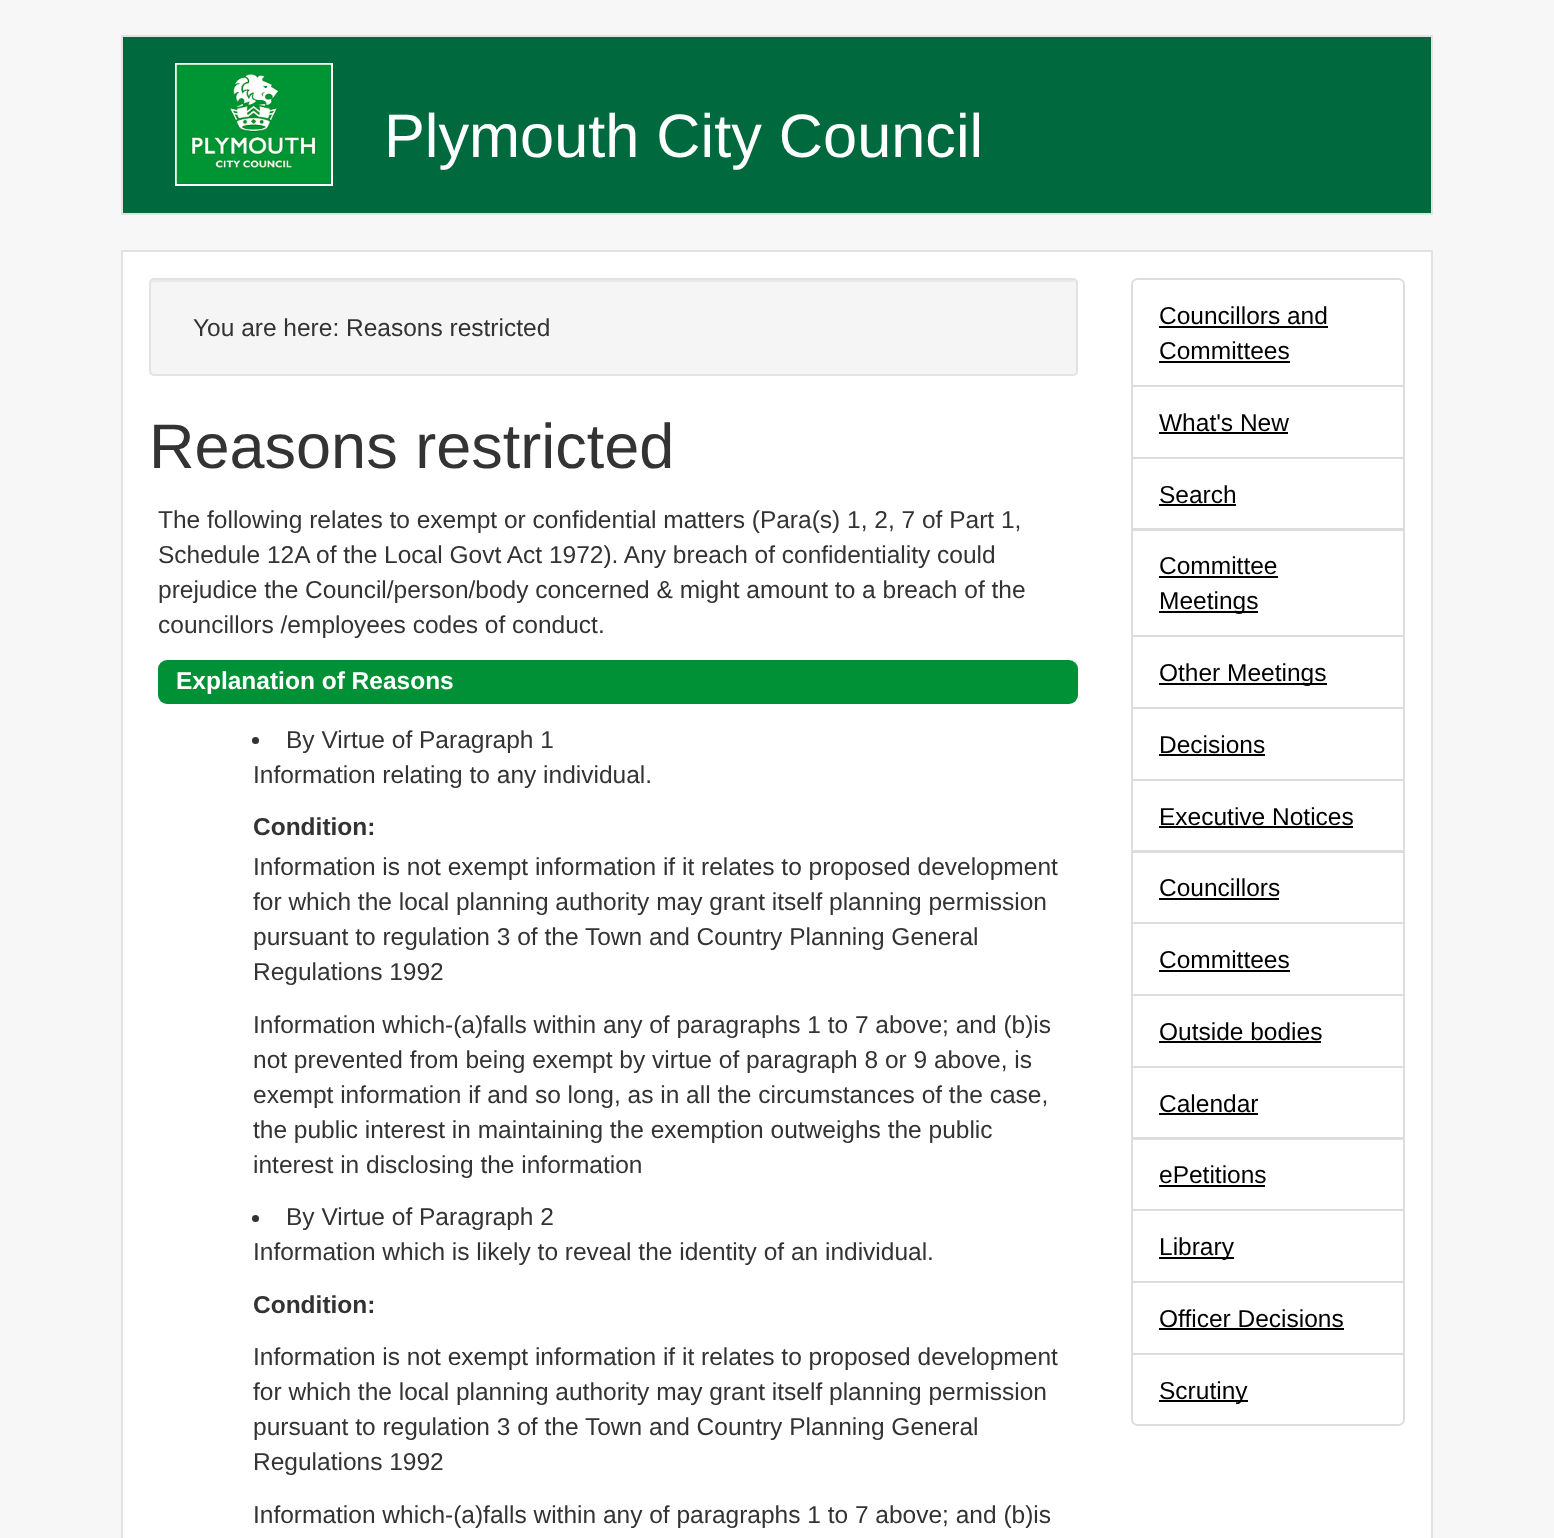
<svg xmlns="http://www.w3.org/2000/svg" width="1554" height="1538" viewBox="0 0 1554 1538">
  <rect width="100%" height="100%" fill="rgb(247,247,247)"/>
  <rect x="122" y="36" width="1310" height="178" fill="rgb(0,105,62)" stroke="rgb(226,226,226)" stroke-width="2"/>
  <rect x="176" y="64" width="156" height="121" fill="none" stroke="rgb(255,255,255)" stroke-width="2"/>
  <image x="176" y="64" width="155" height="120" href="pic1.png"/>
  <text x="384" y="157" font-family="Liberation Sans" font-size="61.25" fill="rgb(255,255,255)">Plymouth City Council</text>
  <rect x="122" y="251" width="1310" height="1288" fill="rgb(255,255,255)" stroke="rgb(226,226,226)" stroke-width="2"/>
  <rect x="149" y="278" width="929" height="98" rx="5" fill="rgb(245,245,245)"/>
  <path d="M154 282H1073C1075 282 1076 283 1076 285V284C1076 282 1074 280 1072 280H155C153 280 152 281 151 283Z" fill="rgb(233,233,233)"/>
  <rect x="150" y="279" width="927" height="96" rx="4" fill="none" stroke="rgb(227,227,227)" stroke-width="2"/>
  <text x="193" y="336" font-family="Liberation Sans" font-size="24.5" fill="rgb(51,51,51)">You are here: Reasons restricted</text>
  <text x="149" y="468" font-family="Liberation Sans" font-size="63" fill="rgb(51,51,51)">Reasons restricted</text>
  <g font-family="Liberation Sans" font-size="24.5" fill="rgb(51,51,51)">
    <text>
      <tspan x="158" y="528">The following relates to exempt or confidential matters (Para(s) 1, 2, 7 of Part 1,</tspan>
      <tspan x="158" y="563">Schedule 12A of the Local Govt Act 1972). Any breach of confidentiality could</tspan>
      <tspan x="158" y="598">prejudice the Council/person/body concerned &amp; might amount to a breach of the</tspan>
      <tspan x="158" y="633">councillors /employees codes of conduct.</tspan>
    </text>
  </g>
  <rect x="158" y="660" width="920" height="44" rx="9" fill="rgb(0,144,54)"/>
  <text x="176" y="689" font-family="Liberation Sans" font-size="24.5" font-weight="bold" fill="rgb(255,255,255)">Explanation of Reasons</text>
  <circle cx="255.5" cy="740.5" r="3.5" fill="rgb(51,51,51)"/>
  <g font-family="Liberation Sans" font-size="24.5" fill="rgb(51,51,51)">
    <text x="286" y="748">By Virtue of Paragraph 1</text>
    <text x="253" y="783">Information relating to any individual.</text>
  </g>
  <text x="253" y="835" font-family="Liberation Sans" font-size="24.5" font-weight="bold" fill="rgb(51,51,51)">Condition:</text>
  <g font-family="Liberation Sans" font-size="24.5" fill="rgb(51,51,51)">
    <text>
      <tspan x="253" y="875">Information is not exempt information if it relates to proposed development</tspan>
      <tspan x="253" y="910">for which the local planning authority may grant itself planning permission</tspan>
      <tspan x="253" y="945">pursuant to regulation 3 of the Town and Country Planning General</tspan>
      <tspan x="253" y="980">Regulations 1992</tspan>
    </text>
    <text>
      <tspan x="253" y="1033">Information which-(a)falls within any of paragraphs 1 to 7 above; and (b)is</tspan>
      <tspan x="253" y="1068">not prevented from being exempt by virtue of paragraph 8 or 9 above, is</tspan>
      <tspan x="253" y="1103">exempt information if and so long, as in all the circumstances of the case,</tspan>
      <tspan x="253" y="1138">the public interest in maintaining the exemption outweighs the public</tspan>
      <tspan x="253" y="1173">interest in disclosing the information</tspan>
    </text>
  </g>
  <circle cx="255.5" cy="1218.5" r="3.5" fill="rgb(51,51,51)"/>
  <g font-family="Liberation Sans" font-size="24.5" fill="rgb(51,51,51)">
    <text x="286" y="1225">By Virtue of Paragraph 2</text>
    <text x="253" y="1260">Information which is likely to reveal the identity of an individual.</text>
  </g>
  <text x="253" y="1313" font-family="Liberation Sans" font-size="24.5" font-weight="bold" fill="rgb(51,51,51)">Condition:</text>
  <g font-family="Liberation Sans" font-size="24.5" fill="rgb(51,51,51)">
    <text>
      <tspan x="253" y="1365">Information is not exempt information if it relates to proposed development</tspan>
      <tspan x="253" y="1400">for which the local planning authority may grant itself planning permission</tspan>
      <tspan x="253" y="1435">pursuant to regulation 3 of the Town and Country Planning General</tspan>
      <tspan x="253" y="1470">Regulations 1992</tspan>
    </text>
    <text x="253" y="1523">Information which-(a)falls within any of paragraphs 1 to 7 above; and (b)is</text>
  </g>
  <path d="M1138 279H1398C1401.5 279 1404 281.5 1404 285V386H1132V285C1132 281.5 1134.5 279 1138 279Z" fill="none" stroke="rgb(221,221,221)" stroke-width="2"/>
  <text x="1159" y="324" font-family="Liberation Sans" font-size="24.5" fill="rgb(0,0,0)">Councillors and</text>
  <rect x="1159" y="326" width="169" height="2" fill="rgb(0,0,0)"/>
  <text x="1159" y="359" font-family="Liberation Sans" font-size="24.5" fill="rgb(0,0,0)">Committees</text>
  <rect x="1159" y="361" width="131" height="2" fill="rgb(0,0,0)"/>
  <rect x="1132" y="386" width="272" height="72" fill="none" stroke="rgb(221,221,221)" stroke-width="2"/>
  <text x="1159" y="431" font-family="Liberation Sans" font-size="24.5" fill="rgb(0,0,0)">What's New</text>
  <rect x="1159" y="432" width="129" height="2" fill="rgb(0,0,0)"/>
  <rect x="1132" y="458" width="272" height="71" fill="none" stroke="rgb(221,221,221)" stroke-width="2"/>
  <text x="1159" y="503" font-family="Liberation Sans" font-size="24.5" fill="rgb(0,0,0)">Search</text>
  <rect x="1159" y="504" width="77" height="2" fill="rgb(0,0,0)"/>
  <rect x="1132" y="530" width="272" height="106" fill="none" stroke="rgb(221,221,221)" stroke-width="2"/>
  <text x="1159" y="574" font-family="Liberation Sans" font-size="24.5" fill="rgb(0,0,0)">Committee</text>
  <rect x="1159" y="576" width="119" height="2" fill="rgb(0,0,0)"/>
  <rect x="1159" y="611" width="99" height="2" fill="rgb(0,0,0)"/>
  <text x="1159" y="609" font-family="Liberation Sans" font-size="24.5" fill="rgb(0,0,0)">Meetings</text>
  <rect x="1132" y="636" width="272" height="72" fill="none" stroke="rgb(221,221,221)" stroke-width="2"/>
  <rect x="1159" y="683" width="168" height="2" fill="rgb(0,0,0)"/>
  <text x="1159" y="681" font-family="Liberation Sans" font-size="24.5" fill="rgb(0,0,0)">Other Meetings</text>
  <rect x="1132" y="708" width="272" height="72" fill="none" stroke="rgb(221,221,221)" stroke-width="2"/>
  <text x="1159" y="753" font-family="Liberation Sans" font-size="24.5" fill="rgb(0,0,0)">Decisions</text>
  <rect x="1159" y="754" width="106" height="2" fill="rgb(0,0,0)"/>
  <rect x="1132" y="780" width="272" height="71" fill="none" stroke="rgb(221,221,221)" stroke-width="2"/>
  <text x="1159" y="825" font-family="Liberation Sans" font-size="24.5" fill="rgb(0,0,0)">Executive Notices</text>
  <rect x="1159" y="826" width="194" height="2" fill="rgb(0,0,0)"/>
  <rect x="1132" y="852" width="272" height="71" fill="none" stroke="rgb(221,221,221)" stroke-width="2"/>
  <text x="1159" y="896" font-family="Liberation Sans" font-size="24.5" fill="rgb(0,0,0)">Councillors</text>
  <rect x="1159" y="898" width="120" height="2" fill="rgb(0,0,0)"/>
  <rect x="1132" y="923" width="272" height="72" fill="none" stroke="rgb(221,221,221)" stroke-width="2"/>
  <text x="1159" y="968" font-family="Liberation Sans" font-size="24.5" fill="rgb(0,0,0)">Committees</text>
  <rect x="1159" y="970" width="131" height="2" fill="rgb(0,0,0)"/>
  <rect x="1132" y="995" width="272" height="72" fill="none" stroke="rgb(221,221,221)" stroke-width="2"/>
  <text x="1159" y="1040" font-family="Liberation Sans" font-size="24.5" fill="rgb(0,0,0)">Outside bodies</text>
  <rect x="1159" y="1041" width="162" height="2" fill="rgb(0,0,0)"/>
  <rect x="1132" y="1067" width="272" height="71" fill="none" stroke="rgb(221,221,221)" stroke-width="2"/>
  <text x="1159" y="1112" font-family="Liberation Sans" font-size="24.5" fill="rgb(0,0,0)">Calendar</text>
  <rect x="1159" y="1113" width="99" height="2" fill="rgb(0,0,0)"/>
  <rect x="1132" y="1139" width="272" height="71" fill="none" stroke="rgb(221,221,221)" stroke-width="2"/>
  <text x="1159" y="1183" font-family="Liberation Sans" font-size="24.5" fill="rgb(0,0,0)">ePetitions</text>
  <rect x="1159" y="1185" width="106" height="2" fill="rgb(0,0,0)"/>
  <rect x="1132" y="1210" width="272" height="72" fill="none" stroke="rgb(221,221,221)" stroke-width="2"/>
  <rect x="1159" y="1257" width="75" height="2" fill="rgb(0,0,0)"/>
  <text x="1159" y="1255" font-family="Liberation Sans" font-size="24.5" fill="rgb(0,0,0)">Library</text>
  <rect x="1132" y="1282" width="272" height="72" fill="none" stroke="rgb(221,221,221)" stroke-width="2"/>
  <text x="1159" y="1327" font-family="Liberation Sans" font-size="24.5" fill="rgb(0,0,0)">Officer Decisions</text>
  <rect x="1159" y="1328" width="185" height="2" fill="rgb(0,0,0)"/>
  <path d="M1132 1354H1404V1419C1404 1422.5 1401.5 1425 1398 1425H1138C1134.5 1425 1132 1422.5 1132 1419Z" fill="rgb(255,255,255)" stroke="rgb(221,221,221)" stroke-width="2"/>
  <rect x="1159" y="1400" width="89" height="2" fill="rgb(0,0,0)"/>
  <text x="1159" y="1399" font-family="Liberation Sans" font-size="24.5" fill="rgb(0,0,0)">Scrutiny</text>
</svg>
